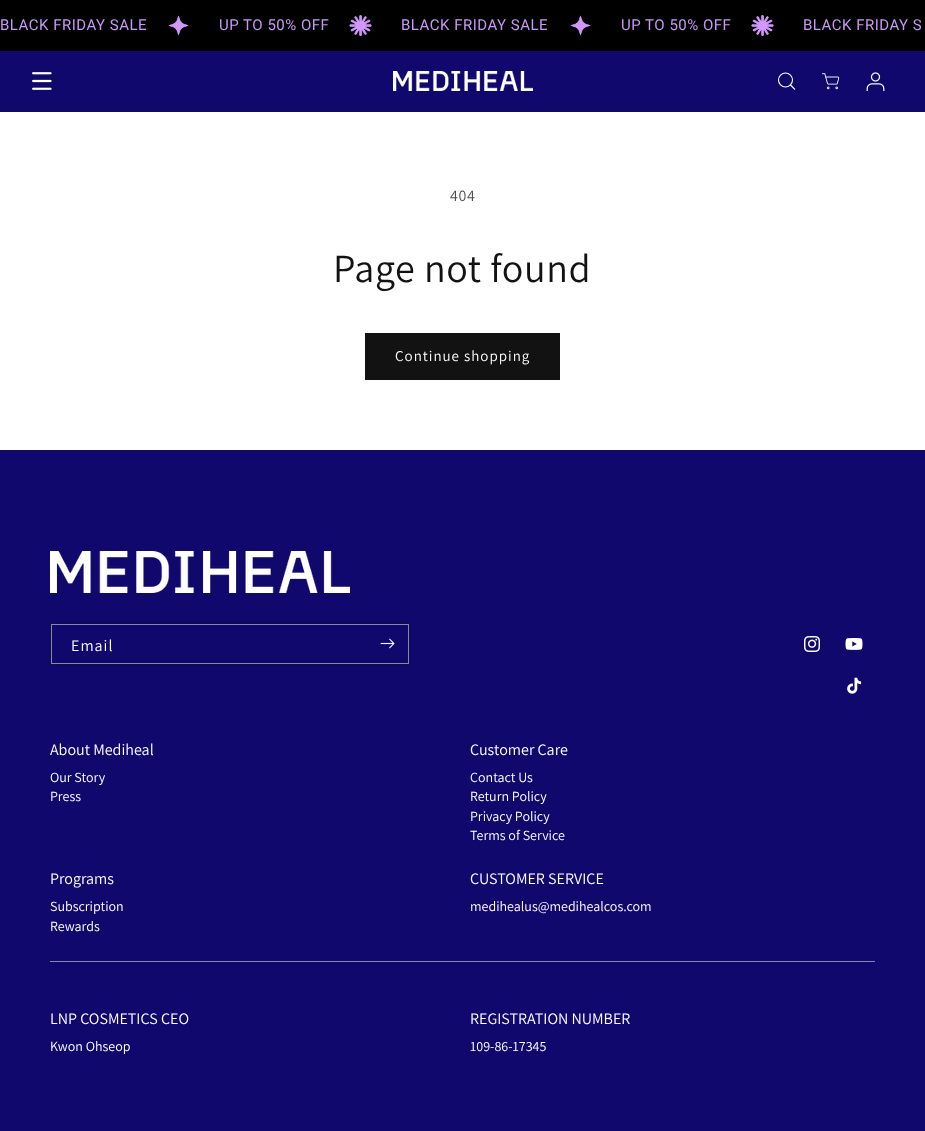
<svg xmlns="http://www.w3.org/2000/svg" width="925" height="1131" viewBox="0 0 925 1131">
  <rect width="100%" height="100%" fill="rgb(255,255,255)"/>
  <rect x="0" y="0" width="925" height="51" fill="rgb(0,0,0)"/>
  <text x="0" y="30" font-family="Roboto" font-size="15" letter-spacing="0.5" fill="rgb(200,153,247)">BLACK FRIDAY SALE</text>
  <image x="168" y="15" width="21" height="21" href="pic1.png"/>
  <text x="219" y="30" font-family="Roboto" font-size="15" letter-spacing="0.5" fill="rgb(200,153,247)">UP TO 50% OFF</text>
  <image x="349" y="15" width="23" height="21" href="pic2.png"/>
  <text x="401" y="30" font-family="Roboto" font-size="15" letter-spacing="0.5" fill="rgb(200,153,247)">BLACK FRIDAY SALE</text>
  <image x="570" y="15" width="21" height="21" href="pic3.png"/>
  <text x="621" y="30" font-family="Roboto" font-size="15" letter-spacing="0.5" fill="rgb(200,153,247)">UP TO 50% OFF</text>
  <image x="751" y="15" width="23" height="21" href="pic2.png"/>
  <text x="803" y="30" font-family="Roboto" font-size="15" letter-spacing="0.5" fill="rgb(200,153,247)">BLACK FRIDAY S</text>
  <rect x="0" y="51" width="925" height="60" fill="rgb(17,8,110)"/>
  <rect x="0" y="111" width="925" height="1" fill="rgb(17,9,103)"/>
  <image x="32" y="72" width="20" height="18" href="pic4.png"/>
  <image x="393" y="71" width="140" height="20" href="pic5.png"/>
  <circle cx="785.5" cy="80" r="7" fill="none" stroke="rgb(255,255,255)" stroke-width="1.1"/>
  <path d="M795 89.5L790 84.5" fill="none" stroke="rgb(255,255,255)" stroke-width="1.1"/>
  <image x="822" y="73" width="18" height="17" href="pic6.png"/>
  <image x="866" y="72" width="19" height="19" href="pic7.png"/>
  <text x="450" y="201" font-family="Assistant" font-size="16" letter-spacing="0.6" fill="rgb(77,77,77)">404</text>
  <text x="333" y="282" font-family="Assistant" font-size="40" letter-spacing="0.6" fill="rgb(18,18,18)">Page not found</text>
  <rect x="365" y="333" width="195" height="47" fill="rgb(18,18,18)"/>
  <text x="395" y="361" font-family="Assistant" font-size="15" letter-spacing="1" fill="rgb(255,255,255)">Continue shopping</text>
  <rect x="0" y="451" width="925" height="680" fill="rgb(17,8,110)"/>
  <rect x="0" y="450" width="925" height="1" fill="rgb(17,9,103)"/>
  <image x="50" y="551" width="300" height="42" href="pic8.png"/>
  <rect x="51.5" y="624.5" width="357" height="39" fill="none" stroke="rgb(136,132,183)"/>
  <rect x="50.5" y="623.5" width="359" height="41" fill="none" stroke="rgb(18,14,59)"/>
  <text x="71" y="651" font-family="Assistant" font-size="16" letter-spacing="1" fill="rgb(255,255,255)">Email</text>
  <image x="380" y="638" width="15" height="11" href="pic9.png"/>
  <image x="804" y="636" width="16" height="16" href="pic10.png"/>
  <image x="845" y="638" width="18" height="12" href="pic11.png"/>
  <image x="847" y="677" width="15" height="17" href="pic12.png"/>
  <rect x="50" y="961" width="825" height="1" fill="rgb(136,132,183)"/>
  <text x="50" y="755" font-family="Assistant" font-size="16" fill="rgb(255,255,255)">About Mediheal</text>
  <g font-family="Assistant" font-size="14" fill="rgb(255,255,255)">
    <text>
      <tspan x="50" y="782">Our Story</tspan>
      <tspan x="50" y="801">Press</tspan>
    </text>
  </g>
  <text x="470" y="755" font-family="Assistant" font-size="16" fill="rgb(255,255,255)">Customer Care</text>
  <g font-family="Assistant" font-size="14" fill="rgb(255,255,255)">
    <text>
      <tspan x="470" y="782">Contact Us</tspan>
      <tspan x="470" y="801">Return Policy</tspan>
      <tspan x="470" y="821">Privacy Policy</tspan>
      <tspan x="470" y="840">Terms of Service</tspan>
    </text>
  </g>
  <text x="50" y="884" font-family="Assistant" font-size="16" fill="rgb(255,255,255)">Programs</text>
  <g font-family="Assistant" font-size="14" fill="rgb(255,255,255)">
    <text>
      <tspan x="50" y="911">Subscription</tspan>
      <tspan x="50" y="931">Rewards</tspan>
    </text>
  </g>
  <text x="470" y="884" font-family="Assistant" font-size="16" fill="rgb(255,255,255)">CUSTOMER SERVICE</text>
  <text x="470" y="911" font-family="Assistant" font-size="14" fill="rgb(255,255,255)">medihealus@medihealcos.com</text>
  <text x="50" y="1024" font-family="Assistant" font-size="16" fill="rgb(255,255,255)">LNP COSMETICS CEO</text>
  <text x="50" y="1051" font-family="Assistant" font-size="14" fill="rgb(255,255,255)">Kwon Ohseop</text>
  <text x="470" y="1024" font-family="Assistant" font-size="16" fill="rgb(255,255,255)">REGISTRATION NUMBER</text>
  <text x="470" y="1051" font-family="Assistant" font-size="14" fill="rgb(255,255,255)">109-86-17345</text>
</svg>
